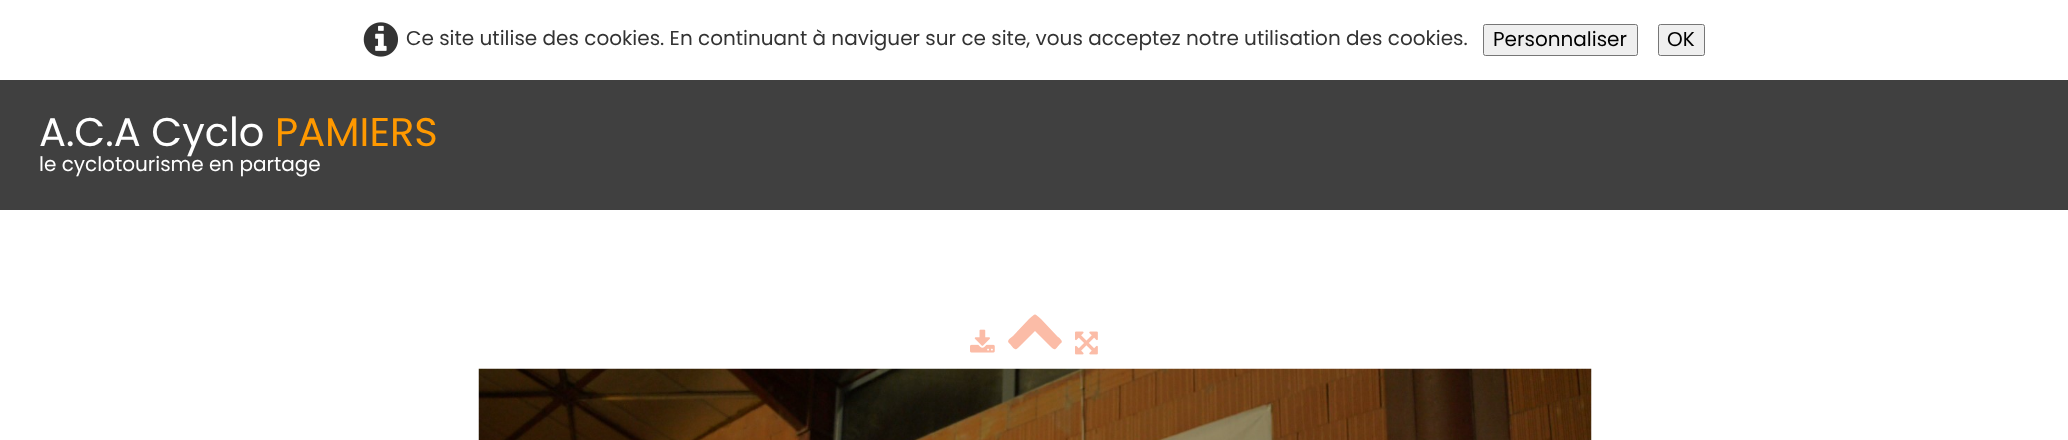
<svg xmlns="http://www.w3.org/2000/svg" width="2068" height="440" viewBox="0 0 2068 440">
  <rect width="100%" height="100%" fill="rgb(255,255,255)"/>
  <image x="363" y="22" width="35" height="35" href="pic1.png"/>
  <text x="406" y="45" font-family="Poppins" font-size="20" fill="rgb(51,51,51)">Ce site utilise des cookies. En continuant à naviguer sur ce site, vous acceptez notre utilisation des cookies.</text>
  <rect x="1483.5" y="24.5" width="154" height="31" rx="2" fill="rgb(239,239,239)" stroke="rgb(118,118,118)"/>
  <text x="1493" y="46" font-family="Poppins" font-size="20" fill="rgb(0,0,0)">Personnaliser</text>
  <rect x="1658.5" y="24.5" width="46" height="31" rx="2" fill="rgb(239,239,239)" stroke="rgb(118,118,118)"/>
  <text x="1667" y="46" font-family="Poppins" font-size="20" fill="rgb(0,0,0)">OK</text>
  <rect x="0" y="80" width="2068" height="130" fill="rgb(64,64,64)"/>
  <text x="39" y="146" font-family="Poppins" font-size="40" fill="rgb(255,255,255)">A.C.A Cyclo</text>
  <text x="275" y="146" font-family="Poppins" font-size="40" fill="rgb(255,153,0)">PAMIERS</text>
  <text x="39" y="171" font-family="Poppins" font-size="20" fill="rgb(255,255,255)">le cyclotourisme en partage</text>
  <image x="970" y="329" width="25" height="24" href="pic2.png"/>
  <path d="M1061 343C1055 349 1056 352 1050 346L1035 331L1020 346C1015 351 1015 350 1010 344C1006 341 1009 339 1013 336L1029 319C1036 313 1034 313 1041 319L1057 336C1058 337 1064 341 1061 343Z" fill="rgb(251,188,167)"/>
  <image x="1075" y="331" width="23" height="24" href="pic3.png"/>
  <image x="478" y="368" width="1114" height="72" href="pic4.png"/>
</svg>
